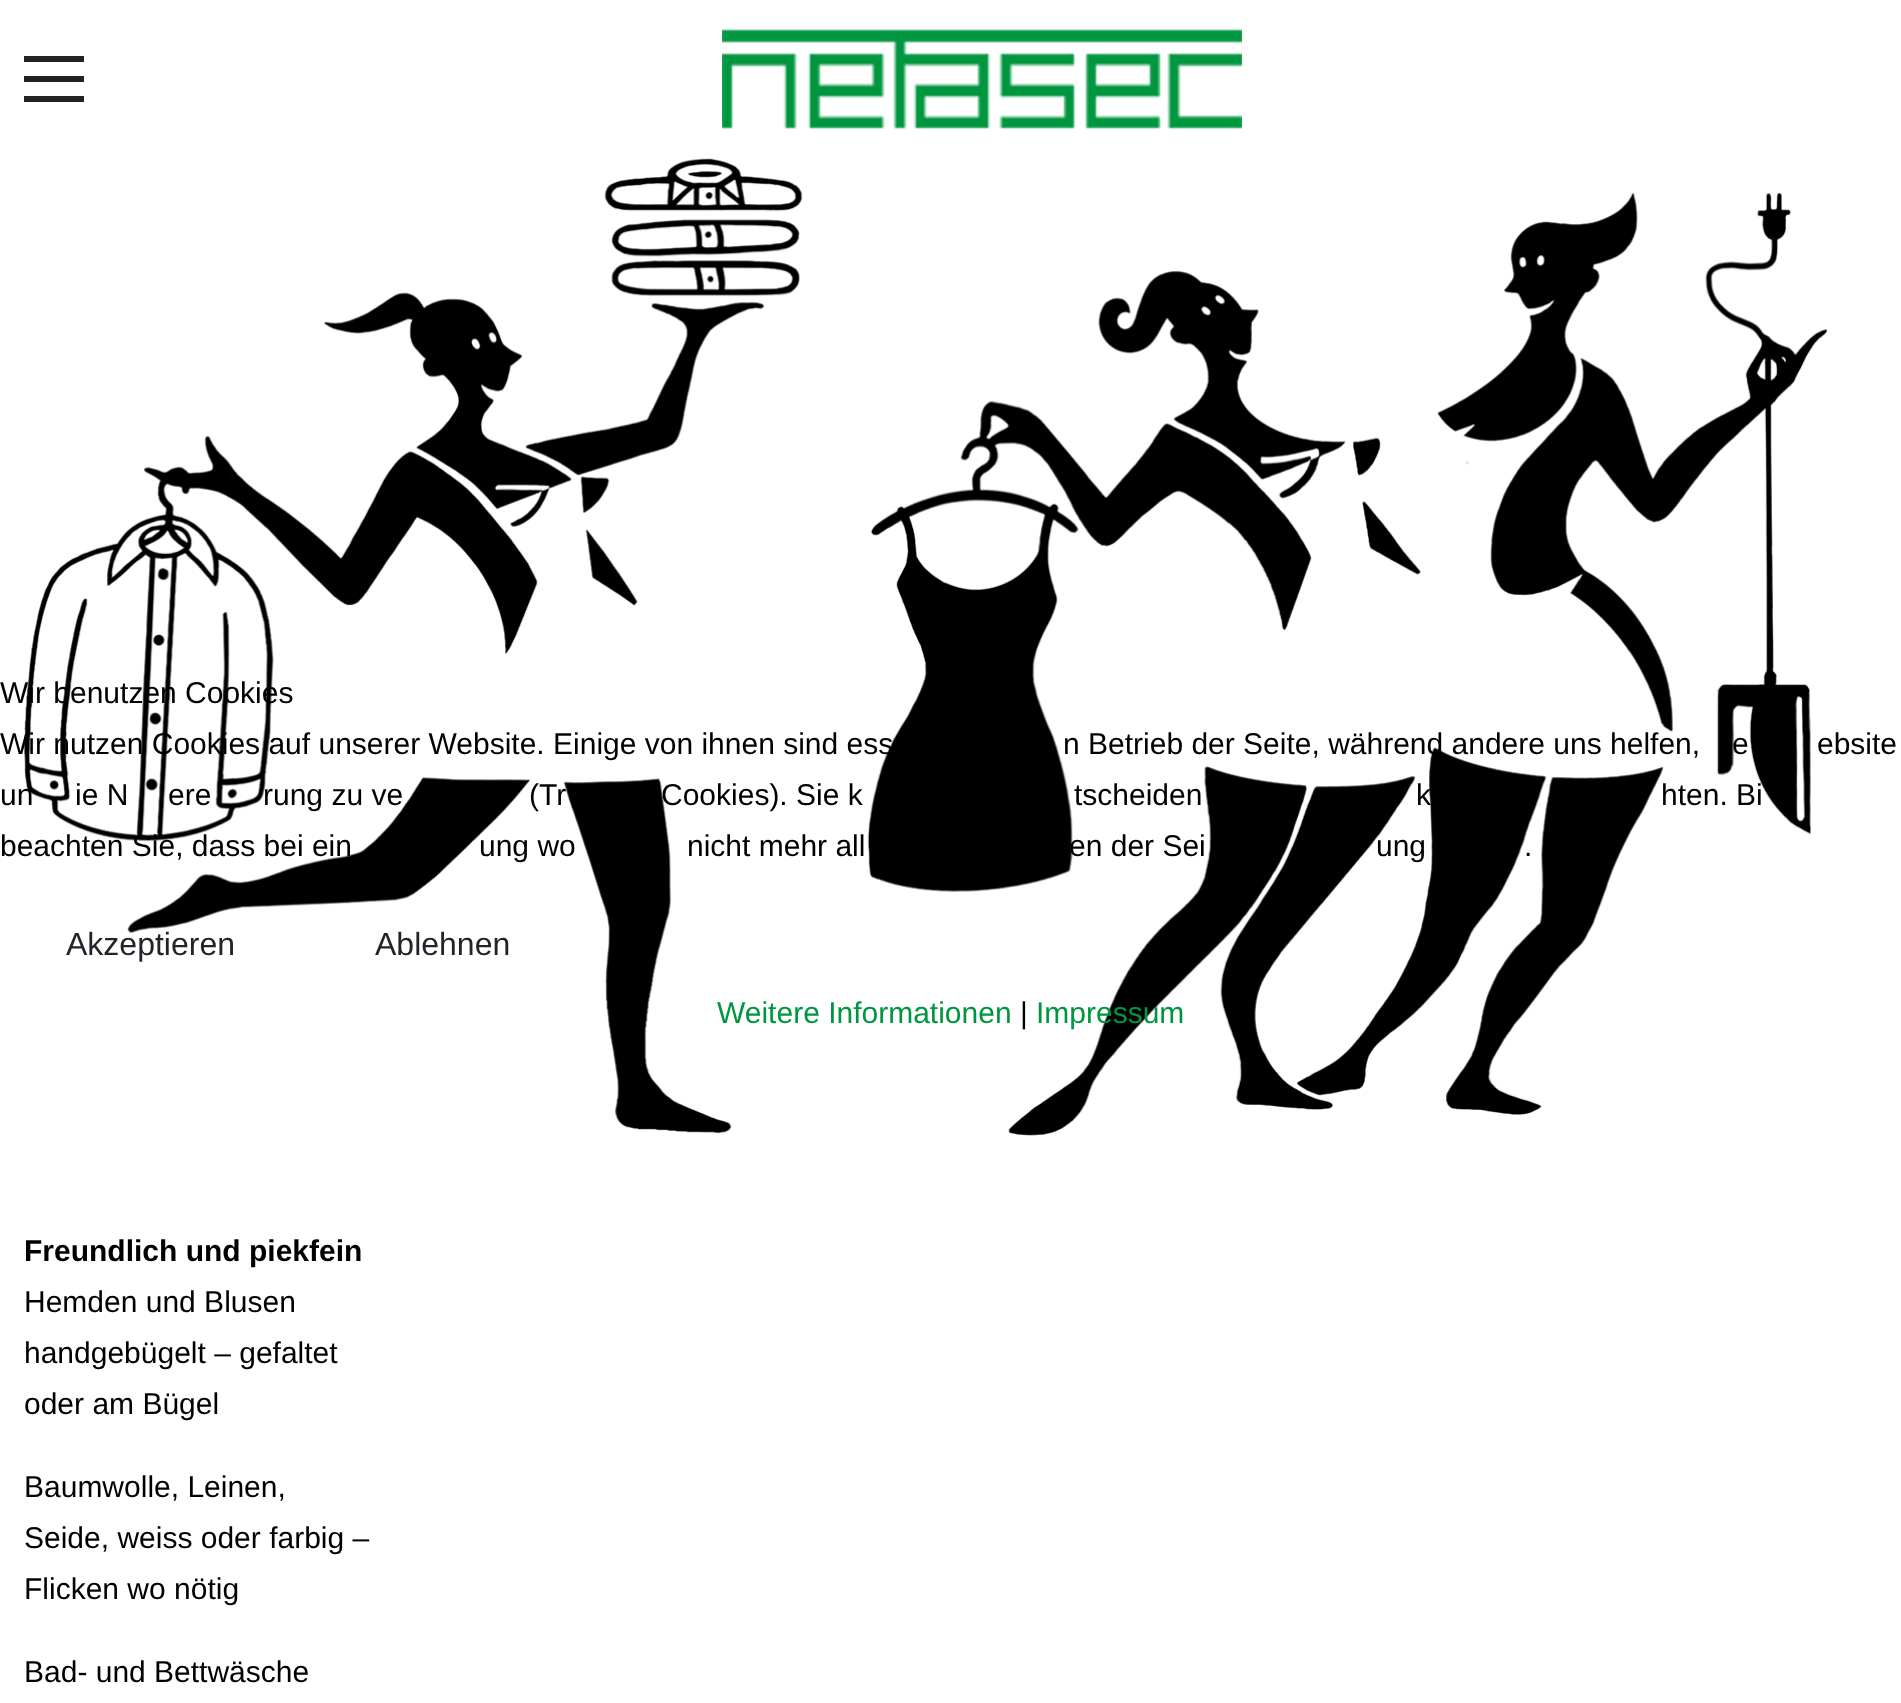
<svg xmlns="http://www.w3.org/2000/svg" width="1901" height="1703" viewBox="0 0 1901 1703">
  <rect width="100%" height="100%" fill="rgb(255,255,255)"/>
  <image x="24" y="158" width="1804" height="978" href="pic2.png"/>
  <g font-family="Liberation Sans" font-size="30" fill="rgb(0,0,0)">
    <text>
      <tspan x="0" y="703">Wir benutzen Cookies</tspan>
      <tspan x="0" y="754">Wir nutzen Cookies auf unserer Website. Einige von ihnen sind ess</tspan>
    </text>
    <text x="1063" y="754">n Betrieb der Seite, während andere uns helfen,</text>
    <text x="1732" y="754">e</text>
    <text x="1817" y="754">ebsite</text>
    <text x="0" y="805">un</text>
    <text x="75" y="805">ie N</text>
    <text x="168" y="805">ere</text>
    <text x="263" y="805">rung zu ve</text>
    <text x="529" y="805">(Tr</text>
    <text x="661" y="805">Cookies). Sie k</text>
    <text x="1074" y="805">tscheiden</text>
    <text x="1416" y="805">k</text>
    <text x="1661" y="805">hten. Bi</text>
    <text x="0" y="856">beachten Sie, dass bei ein</text>
    <text x="479" y="856">ung wo</text>
    <text x="687" y="856">nicht mehr all</text>
    <text x="1069" y="856">en der Sei</text>
    <text x="1376" y="856">ung</text>
    <text x="1524" y="856">.</text>
  </g>
  <g font-family="Liberation Sans" font-size="32" fill="rgb(33,37,41)">
    <text x="66" y="955">Akzeptieren</text>
    <text x="375" y="955">Ablehnen</text>
  </g>
  <text x="717" y="1023" font-family="Liberation Sans" font-size="30" fill="rgb(0,150,64)">Weitere Informationen</text>
  <text x="1020" y="1023" font-family="Liberation Sans" font-size="30" fill="rgb(0,0,0)">|</text>
  <text x="1036" y="1023" font-family="Liberation Sans" font-size="30" fill="rgb(0,150,64)">Impressum</text>
  <rect x="24" y="76" width="60" height="6" fill="rgb(34,34,34)"/>
  <rect x="24" y="56" width="60" height="6" fill="rgb(34,34,34)"/>
  <rect x="24" y="96" width="60" height="6" fill="rgb(34,34,34)"/>
  <image x="722" y="29" width="520" height="100" href="pic1.png"/>
  <text x="24" y="1261" font-family="Liberation Sans" font-size="30" font-weight="bold" fill="rgb(0,0,0)">Freundlich und piekfein</text>
  <g font-family="Liberation Sans" font-size="30" fill="rgb(0,0,0)">
    <text>
      <tspan x="24" y="1312">Hemden und Blusen</tspan>
      <tspan x="24" y="1363">handgebügelt – gefaltet</tspan>
      <tspan x="24" y="1414">oder am Bügel</tspan>
    </text>
    <text>
      <tspan x="24" y="1497">Baumwolle, Leinen,</tspan>
      <tspan x="24" y="1548">Seide, weiss oder farbig –</tspan>
      <tspan x="24" y="1599">Flicken wo nötig</tspan>
    </text>
    <text x="24" y="1682">Bad- und Bettwäsche</text>
  </g>
</svg>
